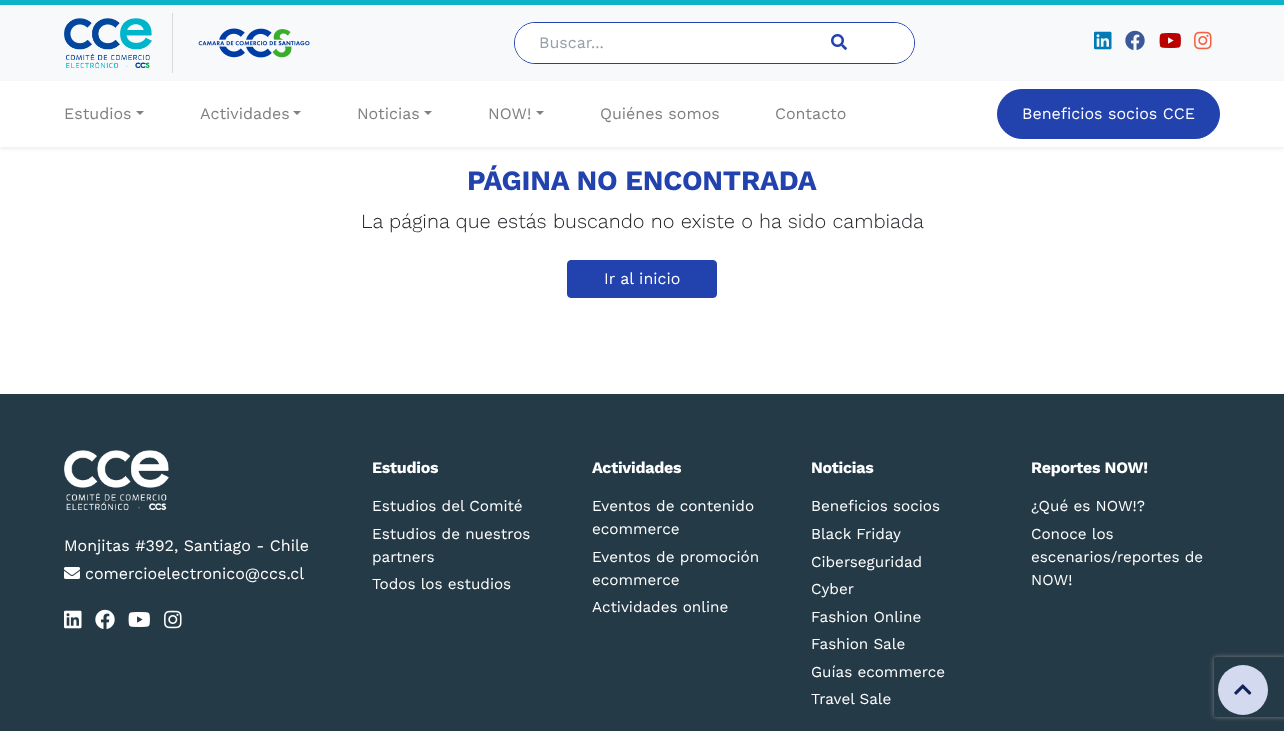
<svg xmlns="http://www.w3.org/2000/svg" width="1284" height="731" viewBox="0 0 1284 731">
  <defs>
    <clipPath id="clip1"><path d="M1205 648H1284V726H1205ZM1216 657H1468C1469 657 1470 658 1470 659V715C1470 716 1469 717 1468 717H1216C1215 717 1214 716 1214 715V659C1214 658 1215 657 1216 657Z" clip-rule="evenodd"/></clipPath>
  </defs>
  <rect width="100%" height="100%" fill="rgb(255,255,255)"/>
  <rect x="0" y="0" width="1284" height="5" fill="rgb(13,180,201)"/>
  <rect x="0" y="5" width="1284" height="76" fill="rgb(248,249,250)"/>
  <rect x="172" y="13" width="1" height="60" fill="rgb(217,217,217)"/>
  <image x="64" y="18" width="88" height="50" href="pic1.png"/>
  <image x="198" y="28" width="112" height="30" href="pic2.png"/>
  <rect x="514.5" y="22.5" width="400" height="41" rx="20.5" fill="none" stroke="rgb(34,66,174)"/>
  <path d="M535 23H765V63H535C524 63 515 54 515 43C515 32 524 23 535 23Z" fill="rgb(255,255,255)"/>
  <text x="539" y="48" font-family="Work Sans" font-size="16" fill="rgb(149,161,169)">Buscar...</text>
  <path d="M764 23H894C905 23 914 32 914 43C914 54 905 63 894 63H764Z" fill="rgb(255,255,255)"/>
  <image x="831" y="34" width="16" height="16" href="pic3.png"/>
  <image x="1094" y="31" width="18" height="19" href="pic4.png"/>
  <image x="1125" y="30" width="20" height="20" href="pic5.png"/>
  <image x="1159" y="33" width="22" height="15" href="pic6.png"/>
  <image x="1194" y="31" width="18" height="19" href="pic7.png"/>
  <rect x="0" y="83" width="1284" height="66" fill="rgba(0,0,0,0.07)" filter="blur(2px)"/>
  <rect x="0" y="81" width="1284" height="66" fill="rgb(255,255,255)"/>
  <text x="64" y="119" font-family="Work Sans" font-size="16" fill="rgb(128,128,128)">Estudios</text>
  <path d="M136 111H144L140 115Z" fill="rgb(128,128,128)"/>
  <text x="200" y="119" font-family="Work Sans" font-size="16" fill="rgb(128,128,128)">Actividades</text>
  <path d="M293 111H301L297 115Z" fill="rgb(128,128,128)"/>
  <text x="357" y="119" font-family="Work Sans" font-size="16" fill="rgb(128,128,128)">Noticias</text>
  <path d="M424 111H432L428 115Z" fill="rgb(128,128,128)"/>
  <text x="488" y="119" font-family="Work Sans" font-size="16" fill="rgb(128,128,128)">NOW!</text>
  <path d="M536 111H544L540 115Z" fill="rgb(128,128,128)"/>
  <g font-family="Work Sans" font-size="16" fill="rgb(128,128,128)">
    <text x="600" y="119">Quiénes somos</text>
    <text x="775" y="119">Contacto</text>
  </g>
  <rect x="997.5" y="89.5" width="222" height="49" rx="24.5" fill="rgb(34,66,174)" stroke="rgb(34,66,174)"/>
  <text x="1022" y="119" font-family="Work Sans" font-size="16" fill="rgb(255,255,255)">Beneficios socios CCE</text>
  <text x="467" y="190" font-family="Work Sans" font-size="28" font-weight="bold" letter-spacing="-0.25" fill="rgb(34,66,174)">PÁGINA NO ENCONTRADA</text>
  <text x="361" y="228" font-family="Work Sans" font-size="20" font-weight="300" fill="rgb(33,37,41)">La página que estás buscando no existe o ha sido cambiada</text>
  <rect x="567.5" y="260.5" width="149" height="37" rx="3.5" fill="rgb(34,66,174)" stroke="rgb(34,66,174)"/>
  <text x="604" y="284" font-family="Work Sans" font-size="16" fill="rgb(255,255,255)">Ir al inicio</text>
  <rect x="0" y="394" width="1284" height="337" fill="rgb(37,58,71)"/>
  <image x="64" y="450" width="105" height="60" href="pic8.png"/>
  <text x="64" y="551" font-family="Work Sans" font-size="16" fill="rgb(255,255,255)">Monjitas #392, Santiago - Chile</text>
  <image x="64" y="567" width="16" height="12" href="pic9.png"/>
  <text x="85" y="579" font-family="Work Sans" font-size="16" fill="rgb(255,255,255)">comercioelectronico@ccs.cl</text>
  <image x="64" y="610" width="18" height="19" href="pic10.png"/>
  <image x="95" y="609" width="20" height="20" href="pic11.png"/>
  <image x="128" y="612" width="22" height="15" href="pic12.png"/>
  <image x="164" y="610" width="18" height="19" href="pic13.png"/>
  <text x="372" y="473" font-family="Work Sans" font-size="16" font-weight="bold" letter-spacing="-0.25" fill="rgb(255,255,255)">Estudios</text>
  <g font-family="Work Sans" font-size="15.25" fill="rgb(255,255,255)">
    <text>
      <tspan x="372" y="511">Estudios del Comité</tspan>
      <tspan x="372" y="539">Estudios de nuestros</tspan>
      <tspan x="372" y="562">partners</tspan>
      <tspan x="372" y="589">Todos los estudios</tspan>
    </text>
  </g>
  <text x="592" y="473" font-family="Work Sans" font-size="16" font-weight="bold" letter-spacing="-0.25" fill="rgb(255,255,255)">Actividades</text>
  <g font-family="Work Sans" font-size="15.25" fill="rgb(255,255,255)">
    <text>
      <tspan x="592" y="511">Eventos de contenido</tspan>
      <tspan x="592" y="534">ecommerce</tspan>
      <tspan x="592" y="562">Eventos de promoción</tspan>
      <tspan x="592" y="585">ecommerce</tspan>
      <tspan x="592" y="612">Actividades online</tspan>
    </text>
  </g>
  <text x="811" y="473" font-family="Work Sans" font-size="16" font-weight="bold" letter-spacing="-0.25" fill="rgb(255,255,255)">Noticias</text>
  <g font-family="Work Sans" font-size="15.25" fill="rgb(255,255,255)">
    <text>
      <tspan x="811" y="511">Beneficios socios</tspan>
      <tspan x="811" y="539">Black Friday</tspan>
      <tspan x="811" y="567">Ciberseguridad</tspan>
      <tspan x="811" y="594">Cyber</tspan>
      <tspan x="811" y="622">Fashion Online</tspan>
      <tspan x="811" y="649">Fashion Sale</tspan>
      <tspan x="811" y="677">Guías ecommerce</tspan>
      <tspan x="811" y="704">Travel Sale</tspan>
    </text>
  </g>
  <text x="1031" y="473" font-family="Work Sans" font-size="16" font-weight="bold" letter-spacing="-0.25" fill="rgb(255,255,255)">Reportes NOW!</text>
  <g font-family="Work Sans" font-size="15.25" fill="rgb(255,255,255)">
    <text>
      <tspan x="1031" y="511">¿Qué es NOW!?</tspan>
      <tspan x="1031" y="539">Conoce los</tspan>
      <tspan x="1031" y="562">escenarios/reportes de</tspan>
      <tspan x="1031" y="585">NOW!</tspan>
    </text>
  </g>
  <g clip-path="url(#clip1)">
    <rect x="1214" y="657" width="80" height="60" rx="2" fill="rgb(128,128,128)" filter="blur(2.5px)"/>
  </g>
  <circle cx="1243" cy="690" r="25" fill="rgb(211,217,239)"/>
  <image x="1234" y="684" width="18" height="11" href="pic14.png"/>
</svg>
